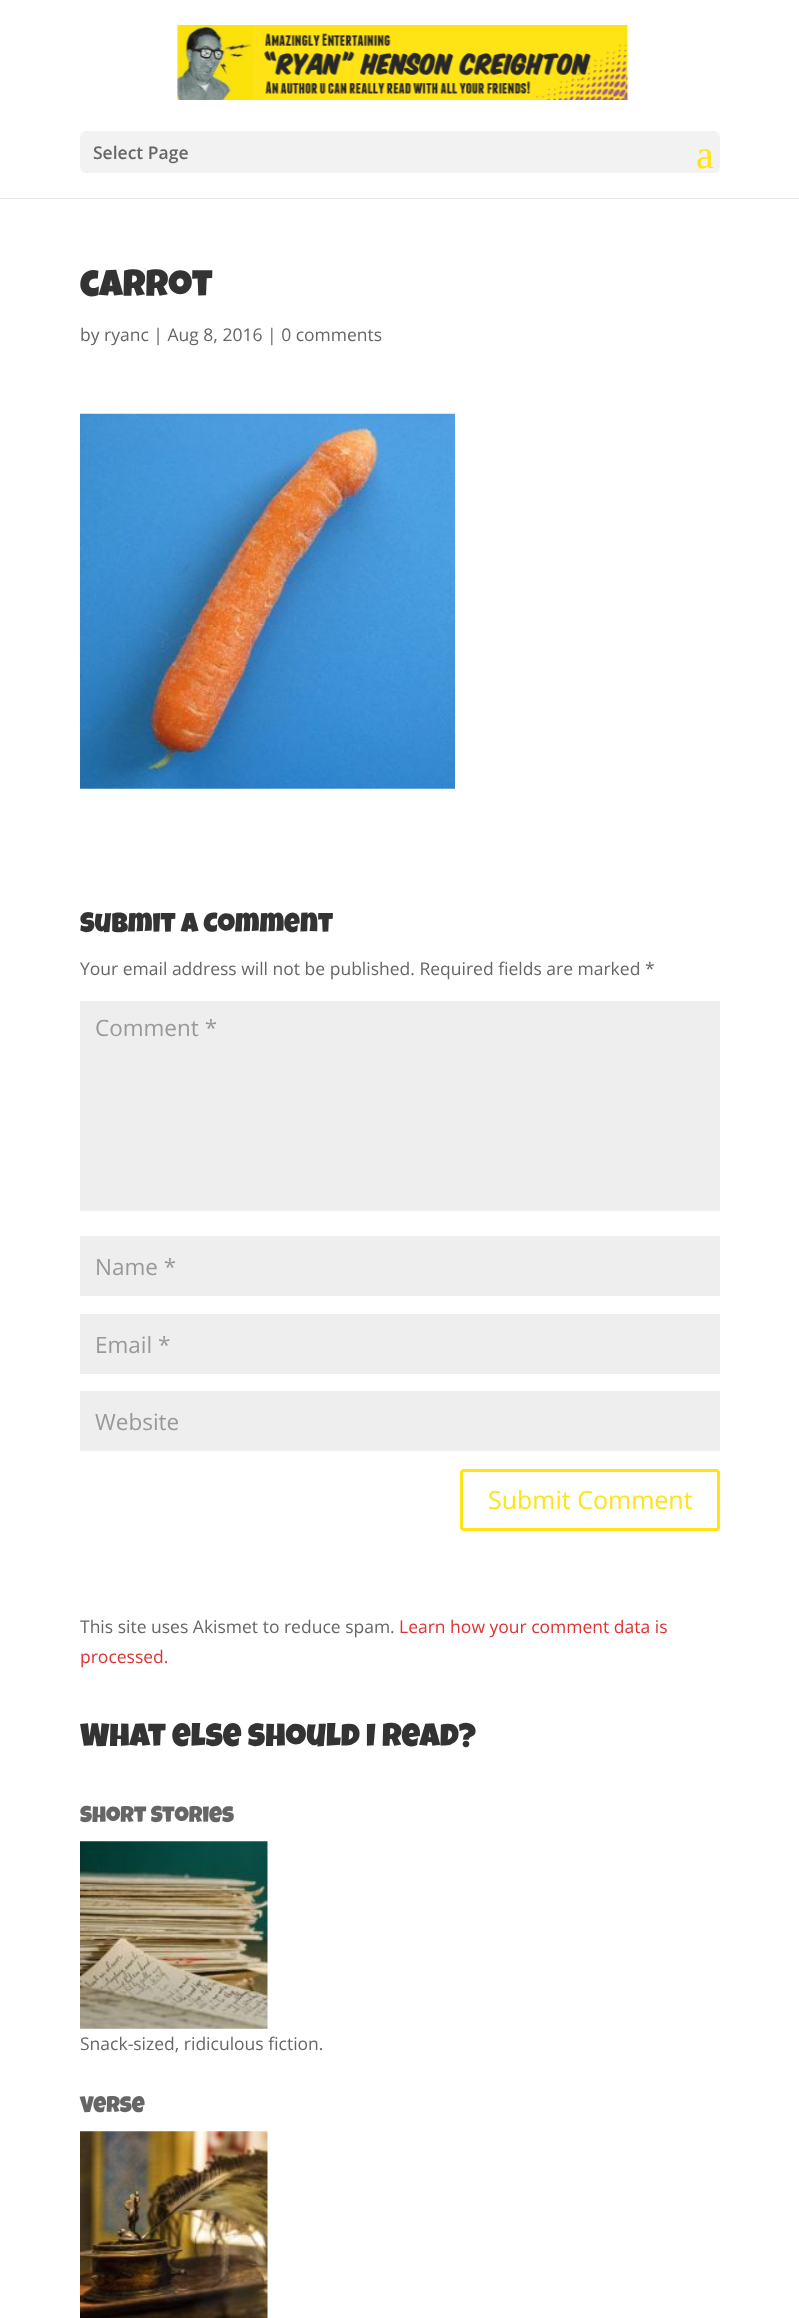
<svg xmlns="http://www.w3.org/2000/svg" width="799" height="2318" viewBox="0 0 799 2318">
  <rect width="100%" height="100%" fill="rgb(255,255,255)"/>
  <rect x="0" y="198" width="799" height="1" fill="rgb(230,230,230)"/>
  <image x="177" y="25" width="452" height="75" href="pic1.png"/>
  <rect x="80" y="131" width="640" height="42" rx="6" fill="rgb(242,242,242)"/>
  <text x="93" y="159" font-family="Open Sans" font-size="17.5" font-weight="600" fill="rgb(102,102,102)">Select Page</text>
  <text x="696" y="168" font-family="Liberation Serif" font-size="40" fill="rgb(255,227,20)">a</text>
  <text x="80" y="296" font-family="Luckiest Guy" font-size="37.5" fill="rgb(51,51,51)">carrot</text>
  <text x="80" y="341" font-family="Open Sans" font-size="17.5" fill="rgb(102,102,102)">by ryanc | Aug 8, 2016 | 0 comments</text>
  <image x="80" y="413" width="375" height="376" href="pic2.png"/>
  <text x="80" y="932" font-family="Luckiest Guy" font-size="27.5" fill="rgb(51,51,51)">Submit a Comment</text>
  <text x="80" y="975" font-family="Open Sans" font-size="17.5" fill="rgb(102,102,102)">Your email address will not be published. Required fields are marked *</text>
  <rect x="80" y="1001" width="640" height="210" fill="rgb(238,238,238)"/>
  <text x="95" y="1036" font-family="Open Sans" font-size="22.5" fill="rgb(153,153,153)">Comment *</text>
  <rect x="80" y="1236" width="640" height="60" fill="rgb(238,238,238)"/>
  <text x="95" y="1275" font-family="Open Sans" font-size="22.5" fill="rgb(153,153,153)">Name *</text>
  <rect x="80" y="1314" width="640" height="60" fill="rgb(238,238,238)"/>
  <text x="95" y="1353" font-family="Open Sans" font-size="22.5" fill="rgb(153,153,153)">Email *</text>
  <rect x="80" y="1391" width="640" height="60" fill="rgb(238,238,238)"/>
  <text x="95" y="1430" font-family="Open Sans" font-size="22.5" fill="rgb(153,153,153)">Website</text>
  <rect x="461.5" y="1470.5" width="257" height="59" rx="2.5" fill="none" stroke="rgb(255,227,20)" stroke-width="3"/>
  <text x="488" y="1509" font-family="Open Sans" font-size="25" fill="rgb(255,227,20)">Submit Comment</text>
  <text x="80" y="1633" font-family="Open Sans" font-size="17.5" fill="rgb(102,102,102)">This site uses Akismet to reduce spam.</text>
  <g font-family="Open Sans" font-size="17.5" fill="rgb(221,51,51)">
    <text x="399" y="1633">Learn how your comment data is</text>
    <text x="80" y="1663">processed.</text>
  </g>
  <text x="80" y="1746" font-family="Luckiest Guy" font-size="32.5" fill="rgb(51,51,51)">What else should I read?</text>
  <text x="80" y="1822" font-family="Luckiest Guy" font-size="22.5" fill="rgb(102,102,102)">Short Stories</text>
  <image x="80" y="1841" width="188" height="188" href="pic3.png"/>
  <text x="80" y="2050" font-family="Open Sans" font-size="17.5" fill="rgb(102,102,102)">Snack-sized, ridiculous fiction.</text>
  <text x="80" y="2112" font-family="Luckiest Guy" font-size="22.5" fill="rgb(102,102,102)">Verse</text>
  <image x="80" y="2131" width="188" height="187" href="pic4.png"/>
</svg>
